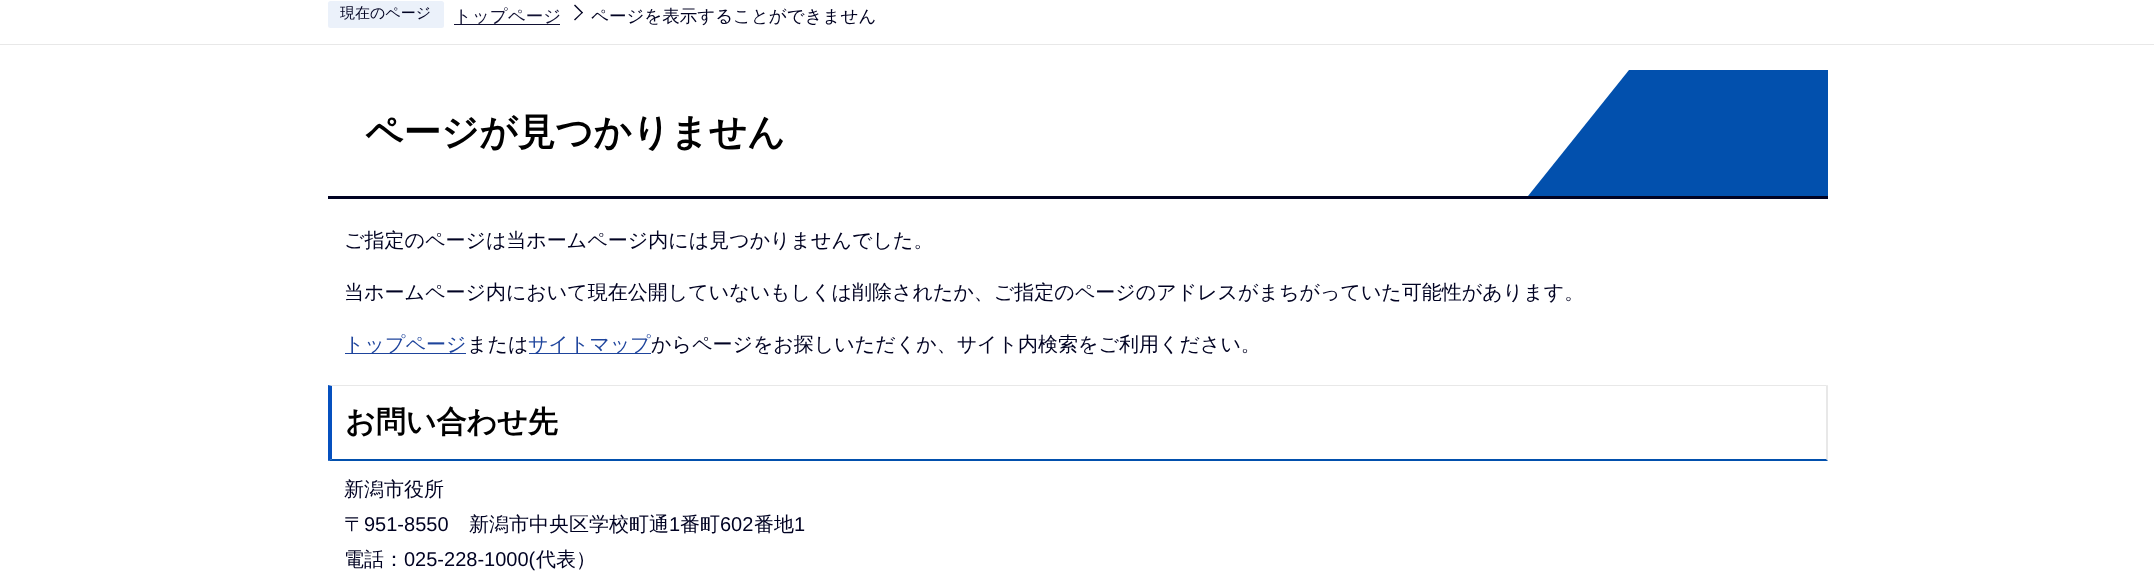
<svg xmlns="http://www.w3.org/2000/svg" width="2154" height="579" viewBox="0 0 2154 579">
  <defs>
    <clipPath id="clip1"><rect x="328" y="70" width="1500" height="126"/></clipPath>
  </defs>
  <rect width="100%" height="100%" fill="rgb(255,255,255)"/>
  <rect x="0" y="44" width="2154" height="1" fill="rgb(232,232,232)"/>
  <rect x="328" y="1" width="116" height="27" rx="2.5" fill="rgb(235,241,250)"/>
  <text x="340" y="18" font-family="WenQuanYi Zen Hei" font-size="15" font-weight="500" fill="rgb(0,2,34)">現在のページ</text>
  <rect x="454" y="24" width="106" height="1" fill="rgb(17,17,51)"/>
  <text x="454" y="22" font-family="WenQuanYi Zen Hei" font-size="17.5" font-weight="500" fill="rgb(17,17,51)">トップページ</text>
  <path d="M575 4.5L583 12.5L582 13.5L574 5.5Z" fill="rgb(0,2,34)"/>
  <path d="M582 12L583 12.5L575 20.5L574 19.5Z" fill="rgb(0,2,34)"/>
  <text x="591" y="22" font-family="WenQuanYi Zen Hei" font-size="17.5" font-weight="500" fill="rgb(0,2,34)">ページを表示することができません</text>
  <rect x="328" y="196" width="1500" height="3" fill="rgb(0,2,34)"/>
  <rect x="1528" y="70" width="300" height="126" fill="rgb(2,80,173)"/>
  <g clip-path="url(#clip1)">
    <path d="M129 70H1629L1528 196H28Z" fill="rgb(255,255,255)"/>
  </g>
  <text x="365" y="145" font-family="WenQuanYi Zen Hei" font-size="37.5" font-weight="bold" fill="rgb(0,0,0)">ページが見つかりません</text>
  <g font-family="WenQuanYi Zen Hei" font-size="20" font-weight="500" fill="rgb(0,2,34)">
    <text x="344" y="247">ご指定のページは当ホームページ内には見つかりませんでした。</text>
    <text x="344" y="299">当ホームページ内において現在公開していないもしくは削除されたか、ご指定のページのアドレスがまちがっていた可能性があります。</text>
  </g>
  <rect x="345" y="353" width="121" height="1" fill="rgb(30,68,156)"/>
  <text x="344" y="351" font-family="WenQuanYi Zen Hei" font-size="20" font-weight="500" fill="rgb(30,68,156)">トップページ</text>
  <text x="467" y="351" font-family="WenQuanYi Zen Hei" font-size="20" font-weight="500" fill="rgb(0,2,34)">または</text>
  <rect x="529" y="353" width="122" height="1" fill="rgb(30,68,156)"/>
  <text x="528" y="351" font-family="WenQuanYi Zen Hei" font-size="20" font-weight="500" fill="rgb(30,68,156)">サイトマップ</text>
  <text x="651" y="351" font-family="WenQuanYi Zen Hei" font-size="20" font-weight="500" fill="rgb(0,2,34)">からページをお探しいただくか、サイト内検索をご利用ください。</text>
  <path d="M328 385H1828L1826 386H332Z" fill="rgb(232,232,232)"/>
  <path d="M1828 385V461L1826 459V386Z" fill="rgb(232,232,232)"/>
  <path d="M1828 461H328L332 459H1826Z" fill="rgb(2,80,173)"/>
  <path d="M328 461V385L332 386V459Z" fill="rgb(5,80,191)"/>
  <text x="345" y="432" font-family="WenQuanYi Zen Hei" font-size="30" font-weight="bold" fill="rgb(0,0,0)">お問い合わせ先</text>
  <g font-family="WenQuanYi Zen Hei" font-size="20" font-weight="500" fill="rgb(0,2,34)">
    <text>
      <tspan x="344" y="496">新潟市役所</tspan>
      <tspan x="344" y="531">〒</tspan>
    </text>
  </g>
  <text x="364" y="531" font-family="Liberation Sans" font-size="20" fill="rgb(0,2,34)">951-8550</text>
  <text x="469" y="531" font-family="WenQuanYi Zen Hei" font-size="20" font-weight="500" fill="rgb(0,2,34)">新潟市中央区学校町通</text>
  <text x="669" y="531" font-family="Liberation Sans" font-size="20" fill="rgb(0,2,34)">1</text>
  <text x="680" y="531" font-family="WenQuanYi Zen Hei" font-size="20" font-weight="500" fill="rgb(0,2,34)">番町</text>
  <text x="720" y="531" font-family="Liberation Sans" font-size="20" fill="rgb(0,2,34)">602</text>
  <text x="754" y="531" font-family="WenQuanYi Zen Hei" font-size="20" font-weight="500" fill="rgb(0,2,34)">番地</text>
  <text x="794" y="531" font-family="Liberation Sans" font-size="20" fill="rgb(0,2,34)">1</text>
  <text x="344" y="566" font-family="WenQuanYi Zen Hei" font-size="20" font-weight="500" fill="rgb(0,2,34)">電話：</text>
  <text x="404" y="566" font-family="Liberation Sans" font-size="20" fill="rgb(0,2,34)">025-228-1000(</text>
  <text x="536" y="566" font-family="WenQuanYi Zen Hei" font-size="20" font-weight="500" fill="rgb(0,2,34)">代表）</text>
</svg>
